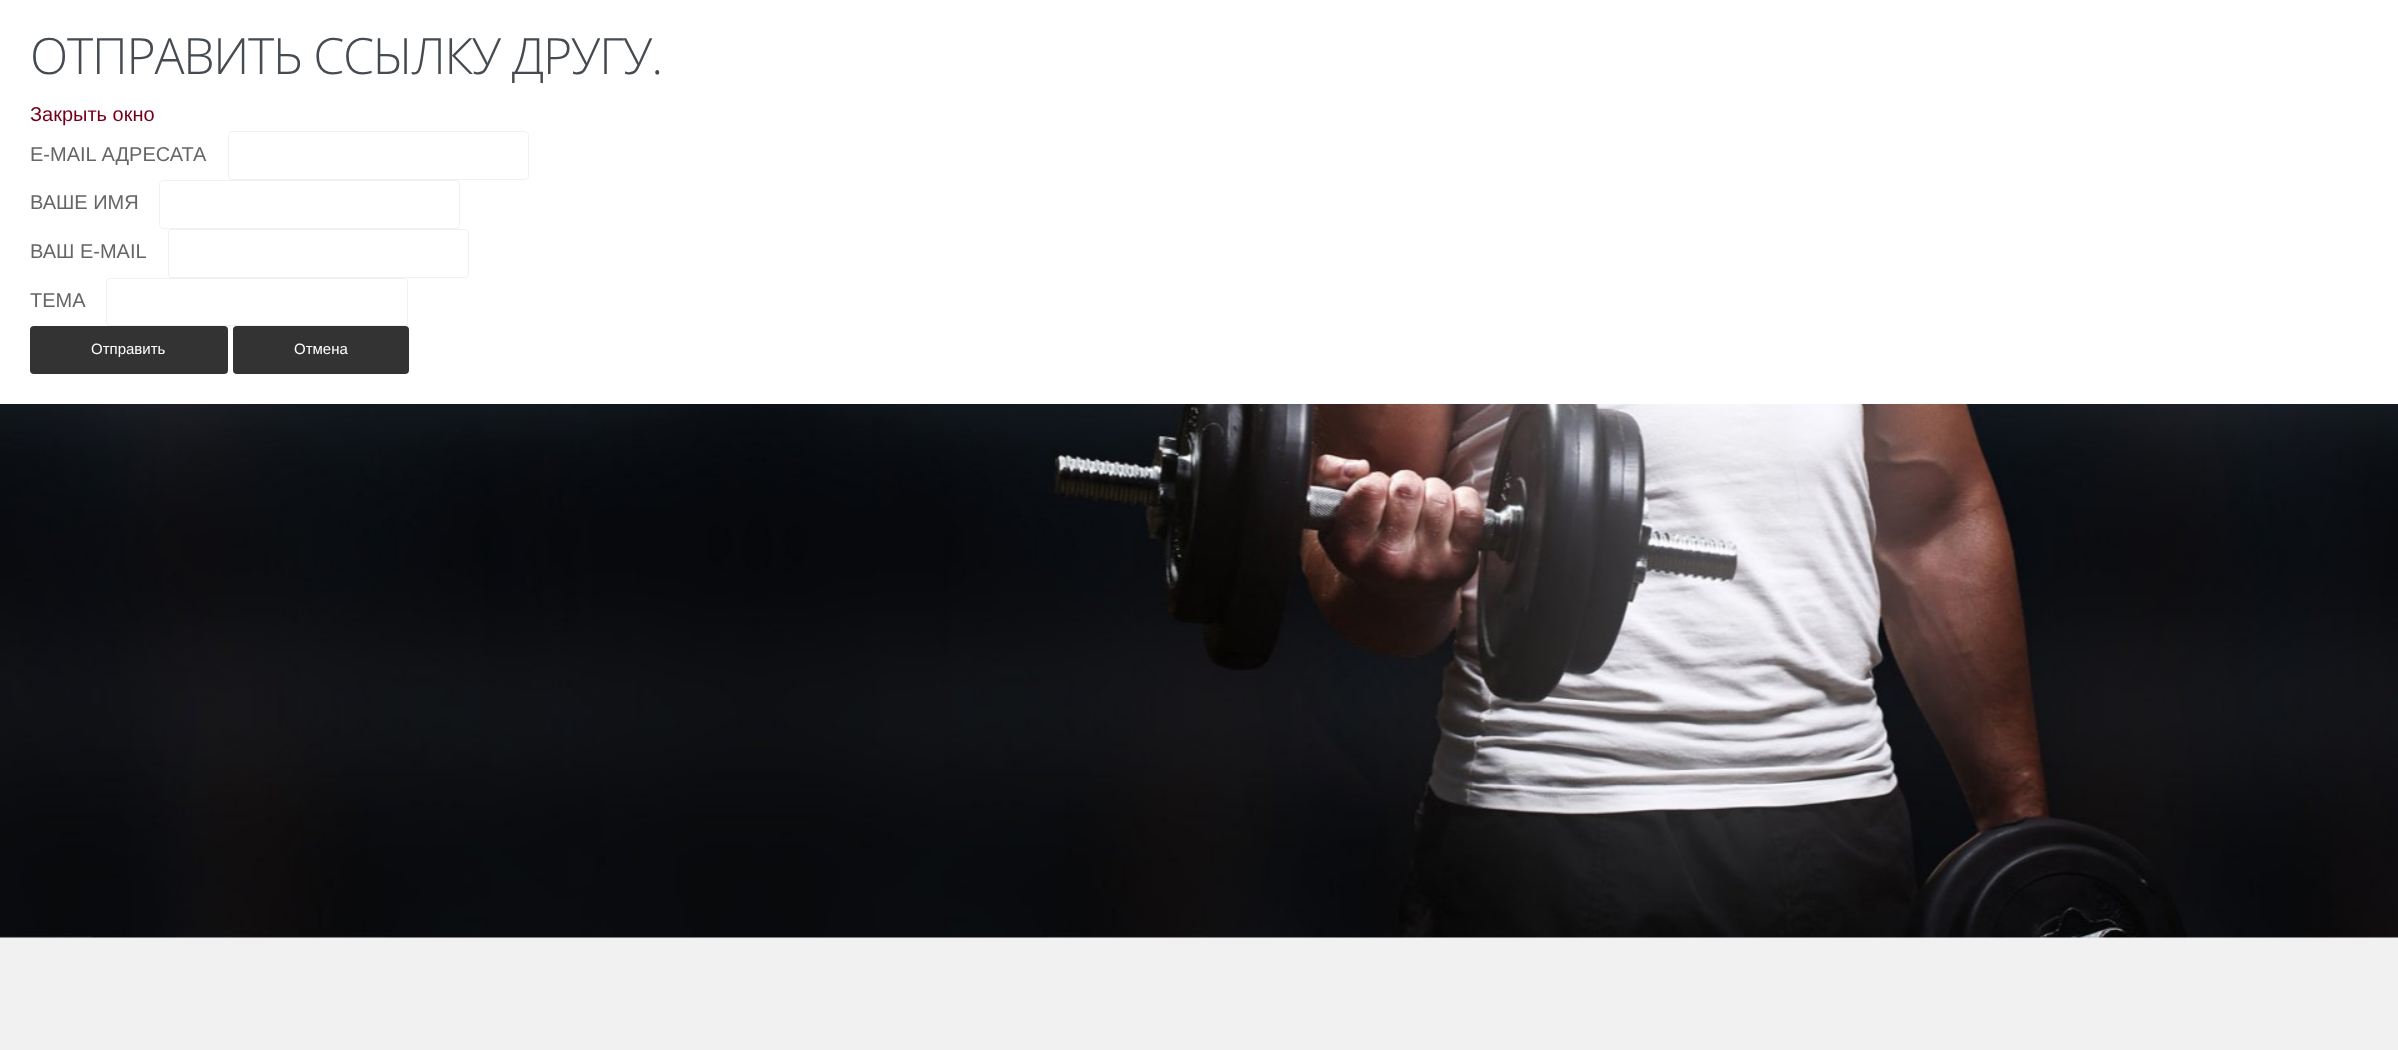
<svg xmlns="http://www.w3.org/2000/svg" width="2398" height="1050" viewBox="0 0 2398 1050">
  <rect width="100%" height="100%" fill="rgb(241,241,241)"/>
  <image x="0" y="404" width="2398" height="534" href="pic1.png"/>
  <rect x="0" y="0" width="2398" height="404" fill="rgb(255,255,255)"/>
  <text x="30" y="74" font-family="Open Sans" font-size="50" font-weight="300" letter-spacing="-1.25" fill="rgb(69,75,81)">ОТПРАВИТЬ ССЫЛКУ ДРУГУ.</text>
  <text x="30" y="121" font-family="Liberation Sans" font-size="20" fill="rgb(115,0,24)">Закрыть окно</text>
  <text x="30" y="161" font-family="Liberation Sans" font-size="20" fill="rgb(102,102,102)">E-MAIL АДРЕСАТА</text>
  <rect x="228.5" y="131.5" width="300" height="48" rx="3.5" fill="none" stroke="rgb(241,241,241)"/>
  <text x="30" y="209" font-family="Liberation Sans" font-size="20" fill="rgb(102,102,102)">ВАШЕ ИМЯ</text>
  <rect x="159.5" y="180.5" width="300" height="48" rx="3.5" fill="none" stroke="rgb(241,241,241)"/>
  <text x="30" y="258" font-family="Liberation Sans" font-size="20" fill="rgb(102,102,102)">ВАШ E-MAIL</text>
  <rect x="168.5" y="229.5" width="300" height="48" rx="3.5" fill="none" stroke="rgb(241,241,241)"/>
  <text x="30" y="307" font-family="Liberation Sans" font-size="20" fill="rgb(102,102,102)">ТЕМА</text>
  <rect x="106.5" y="278.5" width="301" height="47" rx="3.5" fill="none" stroke="rgb(241,241,241)"/>
  <rect x="30" y="326" width="198" height="48" rx="4" fill="rgb(51,51,51)"/>
  <text x="91" y="354" font-family="Liberation Sans" font-size="15" fill="rgb(255,255,255)">Отправить</text>
  <rect x="233" y="326" width="176" height="48" rx="4" fill="rgb(51,51,51)"/>
  <text x="294" y="354" font-family="Liberation Sans" font-size="15" fill="rgb(255,255,255)">Отмена</text>
</svg>
